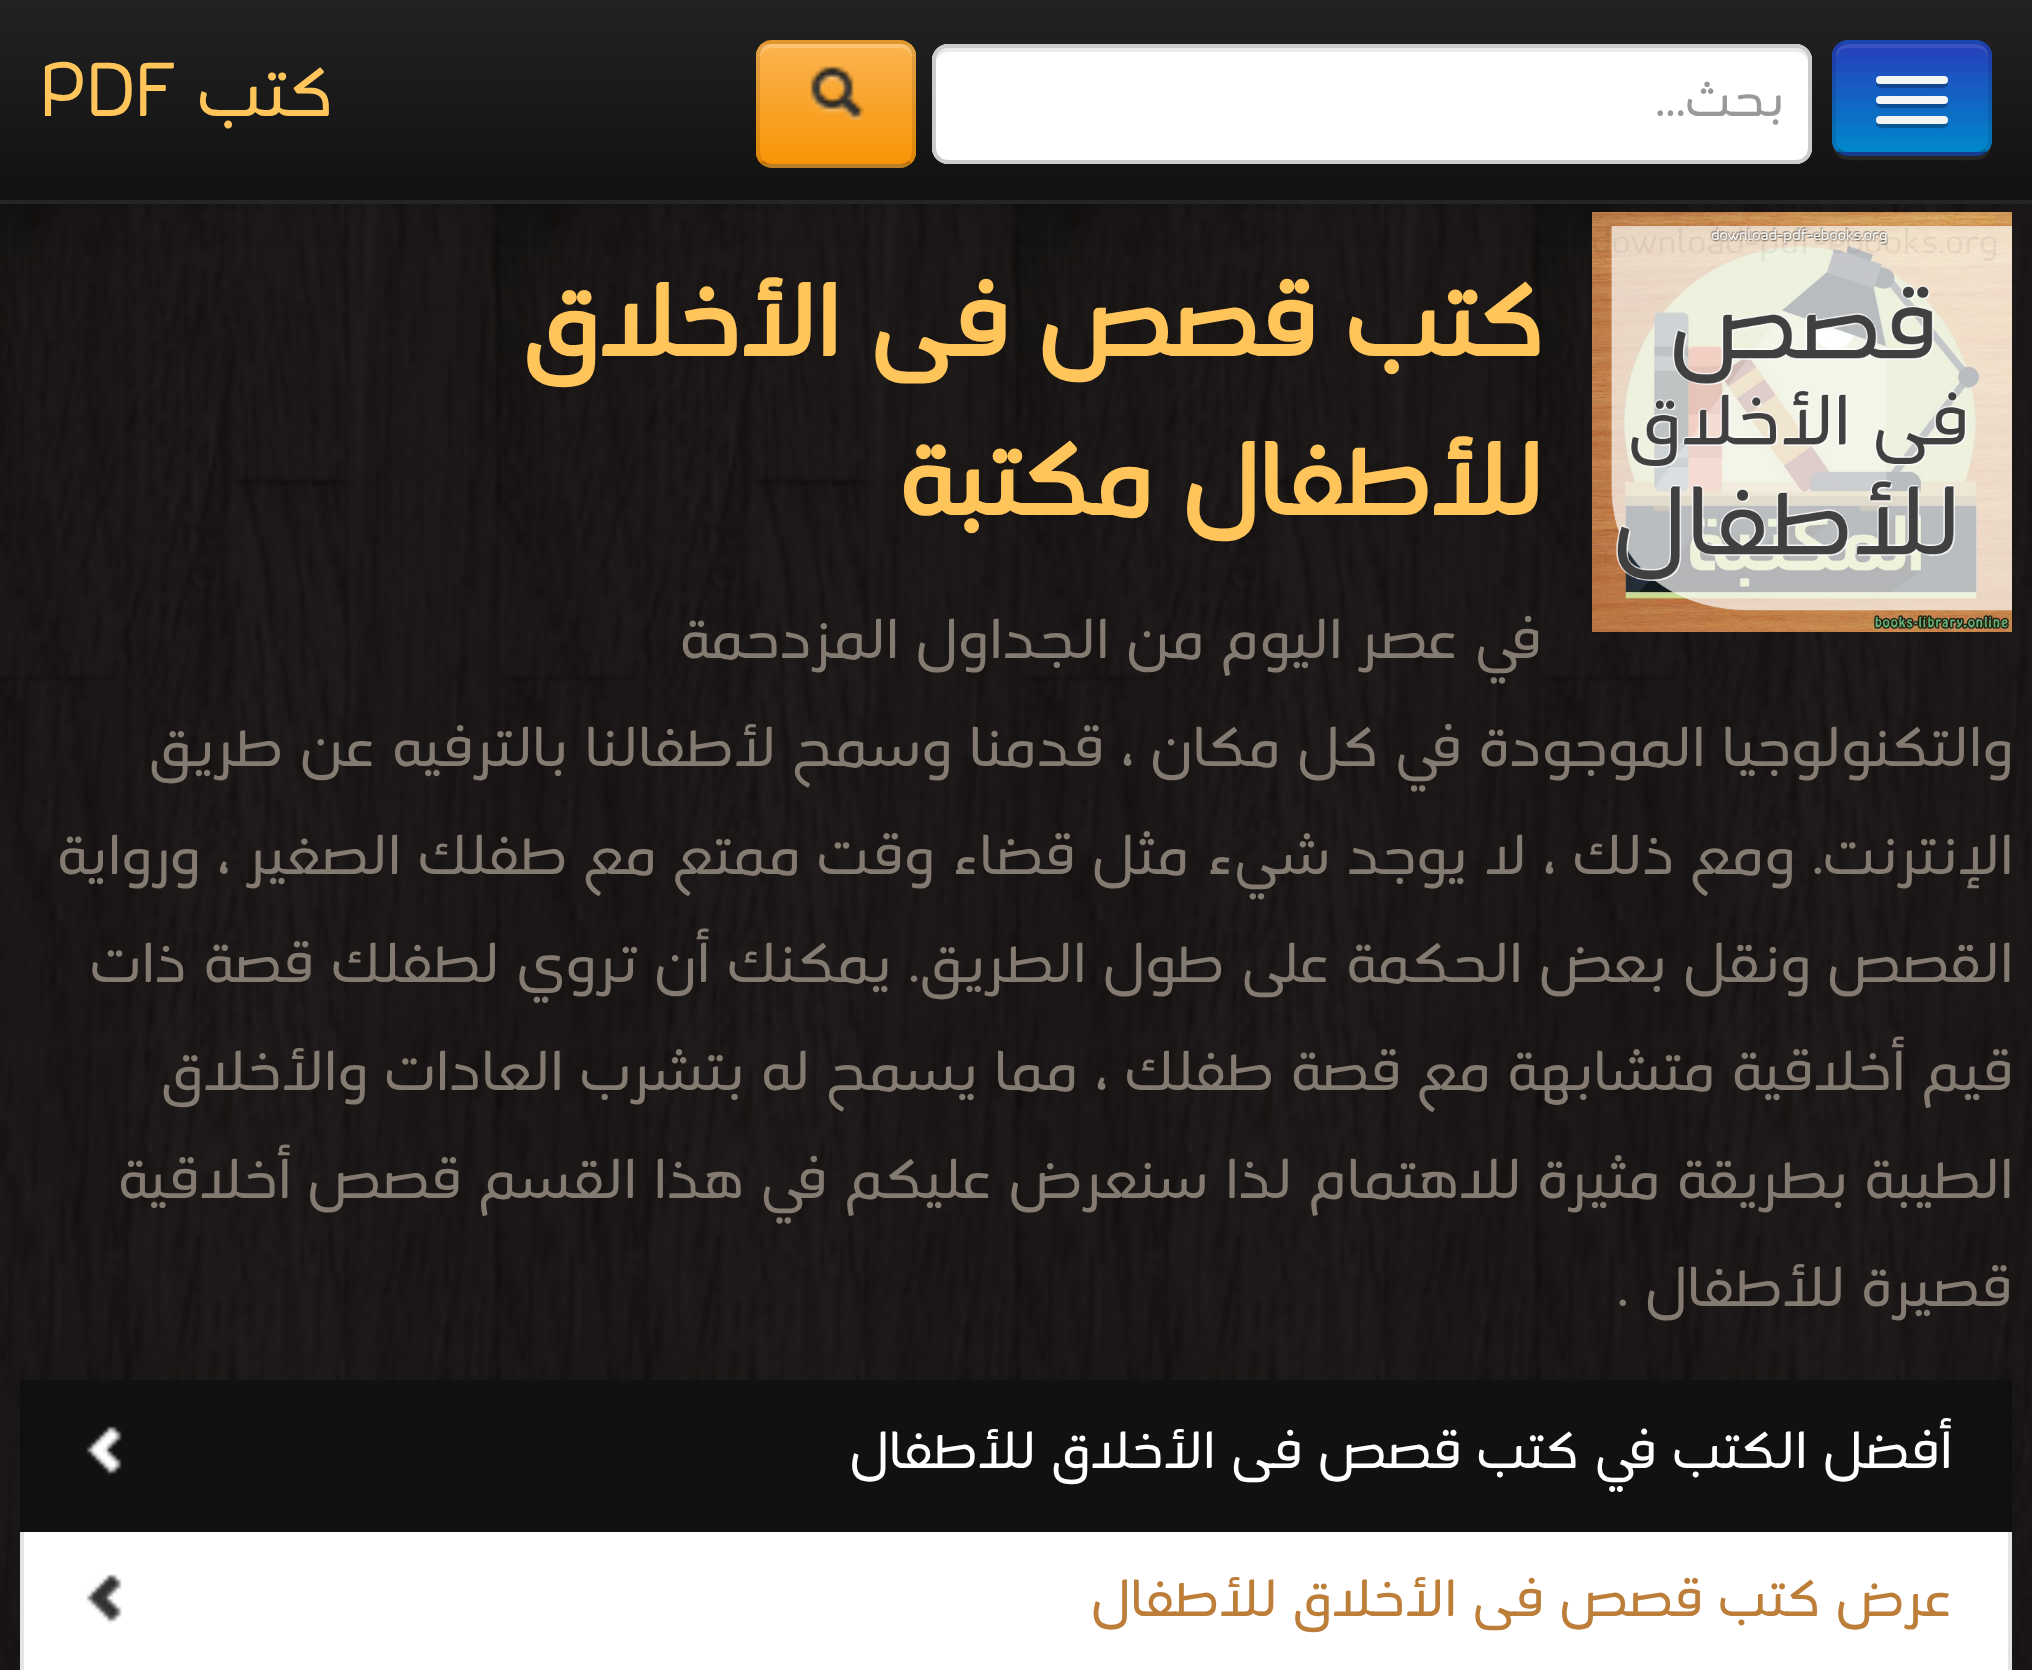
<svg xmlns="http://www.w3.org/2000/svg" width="2032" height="1670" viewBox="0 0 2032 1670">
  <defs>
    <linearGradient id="g1" gradientUnits="userSpaceOnUse" x1="1016" y1="0" x2="1016" y2="200"><stop offset="0" stop-color="rgb(34,34,34)"/><stop offset="1" stop-color="rgb(17,17,17)"/></linearGradient>
    <clipPath id="clip1"><rect x="1832" y="40" width="160" height="116" rx="16"/></clipPath>
    <linearGradient id="g2" gradientUnits="userSpaceOnUse" x1="1912" y1="44" x2="1912" y2="152"><stop offset="0" stop-color="rgb(38,63,187)"/><stop offset="1" stop-color="rgb(0,136,204)"/></linearGradient>
    <clipPath id="clip2"><rect x="756" y="40" width="160" height="128" rx="16"/></clipPath>
    <linearGradient id="g3" gradientUnits="userSpaceOnUse" x1="836" y1="44" x2="836" y2="164"><stop offset="0" stop-color="rgb(251,180,80)"/><stop offset="1" stop-color="rgb(248,148,6)"/></linearGradient>
  </defs>
  <rect width="100%" height="100%" fill="rgb(255,255,255)"/>
  <image x="0" y="204" width="2032" height="1466" href="pic1.png"/>
  <image x="1592" y="212" width="420" height="420" href="pic3.png"/>
  <rect x="0" y="4" width="2032" height="204" fill="rgba(0,0,0,0.1)" filter="blur(20px)"/>
  <rect x="0" y="0" width="2032" height="200" fill="url(#g1)"/>
  <rect x="0" y="200" width="2032" height="4" fill="rgb(37,37,37)"/>
  <path d="M1832 140C1832 164 1850 160 1869 160H1955C1974 160 1992 164 1992 140C1992 149 1985 156 1976 156H1848C1839 156 1832 149 1832 140Z" fill="rgb(38,38,38)"/>
  <rect x="1832" y="40" width="160" height="116" rx="16" fill="rgb(30,80,191)"/>
  <g clip-path="url(#clip1)">
    <rect x="1832" y="44" width="160" height="108" fill="url(#g2)"/>
  </g>
  <path d="M1848 48H1976C1983 48 1988 53 1988 60V56C1988 49 1983 44 1976 44H1848C1841 44 1836 49 1836 56V60C1836 53 1841 48 1848 48Z" fill="rgba(255,255,255,0.1)"/>
  <path d="M1986 150C1983.5 152.5 1979.5 154 1976 154H1848C1844.5 154 1840.5 152.5 1838 150" fill="none" stroke="rgba(0,0,0,0.25)" stroke-width="4"/>
  <path d="M1838 150C1835.5 147.5 1834 143.5 1834 140V56C1834 52.5 1835.5 48.5 1838 46C1840.5 43.5 1844.5 42 1848 42H1976C1979.5 42 1983.5 43.5 1986 46C1988.5 48.5 1990 52.5 1990 56V140C1990 143.5 1988.5 147.5 1986 150" fill="none" stroke="rgba(0,0,0,0.1)" stroke-width="4"/>
  <path d="M1877 82C1872 90 1890 88 1891 88H1933C1934 88 1952 90 1947 82C1947 83 1945 84 1944 84H1880C1879 84 1877 83 1877 82Z" fill="rgb(17,68,145)"/>
  <rect x="1876" y="76" width="72" height="8" rx="4" fill="rgb(245,245,245)"/>
  <path d="M1877 102C1872 110 1890 108 1891 108H1933C1934 108 1952 110 1947 102C1947 103 1945 104 1944 104H1880C1879 104 1877 103 1877 102Z" fill="rgba(0,0,0,0.25)"/>
  <rect x="1876" y="96" width="72" height="8" rx="4" fill="rgb(245,245,245)"/>
  <path d="M1877 122C1872 130 1890 128 1891 128H1933C1934 128 1952 130 1947 122C1947 123 1945 124 1944 124H1880C1879 124 1877 123 1877 122Z" fill="rgb(7,89,150)"/>
  <rect x="1876" y="116" width="72" height="8" rx="4" fill="rgb(245,245,245)"/>
  <rect x="932" y="44" width="880" height="120" rx="16" fill="rgb(255,255,255)"/>
  <path d="M948 52H1796C1803 52 1808 57 1808 64V60C1808 53 1803 48 1796 48H948C941 48 936 53 936 60V64C936 57 941 52 948 52Z" fill="rgb(236,236,236)"/>
  <rect x="934" y="46" width="876" height="116" rx="14" fill="none" stroke="rgb(204,204,204)" stroke-width="4"/>
  <text x="1784" y="116" font-family="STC" font-size="56" direction="rtl" fill="rgb(153,153,153)">بحث...</text>
  <rect x="756" y="40" width="160" height="128" rx="16" fill="rgb(250,167,50)"/>
  <g clip-path="url(#clip2)">
    <rect x="756" y="44" width="160" height="120" fill="url(#g3)"/>
  </g>
  <path d="M772 48H900C907 48 912 53 912 60V56C912 49 907 44 900 44H772C765 44 760 49 760 56V60C760 53 765 48 772 48Z" fill="rgba(255,255,255,0.2)"/>
  <path d="M910 162C907.5 164.5 903.5 166 900 166H772C768.5 166 764.5 164.5 762 162" fill="none" stroke="rgba(0,0,0,0.25)" stroke-width="4"/>
  <path d="M762 162C759.5 159.5 758 155.5 758 152V56C758 52.5 759.5 48.5 762 46C764.5 43.5 768.5 42 772 42H900C903.5 42 907.5 43.5 910 46C912.5 48.5 914 52.5 914 56V152C914 155.5 912.5 159.5 910 162" fill="none" stroke="rgba(0,0,0,0.1)" stroke-width="4"/>
  <image x="810" y="66" width="54" height="54" href="pic2.png"/>
  <text x="333" y="116" font-family="STC" font-size="80" direction="rtl" fill="rgb(255,197,91)">كتب</text>
  <text x="40" y="116" font-family="STC" font-size="80" fill="rgb(255,197,91)">PDF</text>
  <g font-family="STC" font-size="116" font-weight="bold" direction="rtl" fill="rgb(255,197,91)">
    <text>
      <tspan x="1542" y="356">كتب قصص فى الأخلاق</tspan>
      <tspan x="1542" y="515">للأطفال مكتبة</tspan>
    </text>
  </g>
  <g font-family="STC" font-size="64.4" direction="rtl" fill="rgb(131,122,113)">
    <text x="1542" y="658">في عصر اليوم من الجداول المزدحمة</text>
    <text>
      <tspan x="2013" y="766">والتكنولوجيا الموجودة في كل مكان ، قدمنا وسمح لأطفالنا بالترفيه عن طريق</tspan>
      <tspan x="2013" y="874">الإنترنت. ومع ذلك ، لا يوجد شيء مثل قضاء وقت ممتع مع طفلك الصغير ، ورواية</tspan>
      <tspan x="2013" y="982">القصص ونقل بعض الحكمة على طول الطريق. يمكنك أن تروي لطفلك قصة ذات</tspan>
      <tspan x="2013" y="1090">قيم أخلاقية متشابهة مع قصة طفلك ، مما يسمح له بتشرب العادات والأخلاق</tspan>
      <tspan x="2013" y="1198">الطيبة بطريقة مثيرة للاهتمام لذا سنعرض عليكم في هذا القسم قصص أخلاقية</tspan>
    </text>
    <text x="2012" y="1306">قصيرة للأطفال .</text>
  </g>
  <rect x="22" y="1530" width="1988" height="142" fill="rgb(255,255,255)" stroke="rgb(229,229,229)" stroke-width="4"/>
  <rect x="24" y="1380" width="1984" height="152" fill="rgb(17,17,17)"/>
  <rect x="2008" y="1380" width="4" height="152" fill="rgb(15,15,15)"/>
  <rect x="20" y="1380" width="4" height="152" fill="rgb(15,15,15)"/>
  <text x="1952" y="1468" font-family="STC" font-size="60" direction="rtl" fill="rgb(255,255,255)">أفضل الكتب في كتب قصص فى الأخلاق للأطفال</text>
  <image x="86" y="1426" width="36" height="50" href="pic4.png"/>
  <text x="1952" y="1616" font-family="STC" font-size="60" direction="rtl" fill="rgb(189,126,58)">عرض كتب قصص فى الأخلاق للأطفال</text>
  <image x="86" y="1574" width="36" height="50" href="pic5.png"/>
</svg>
